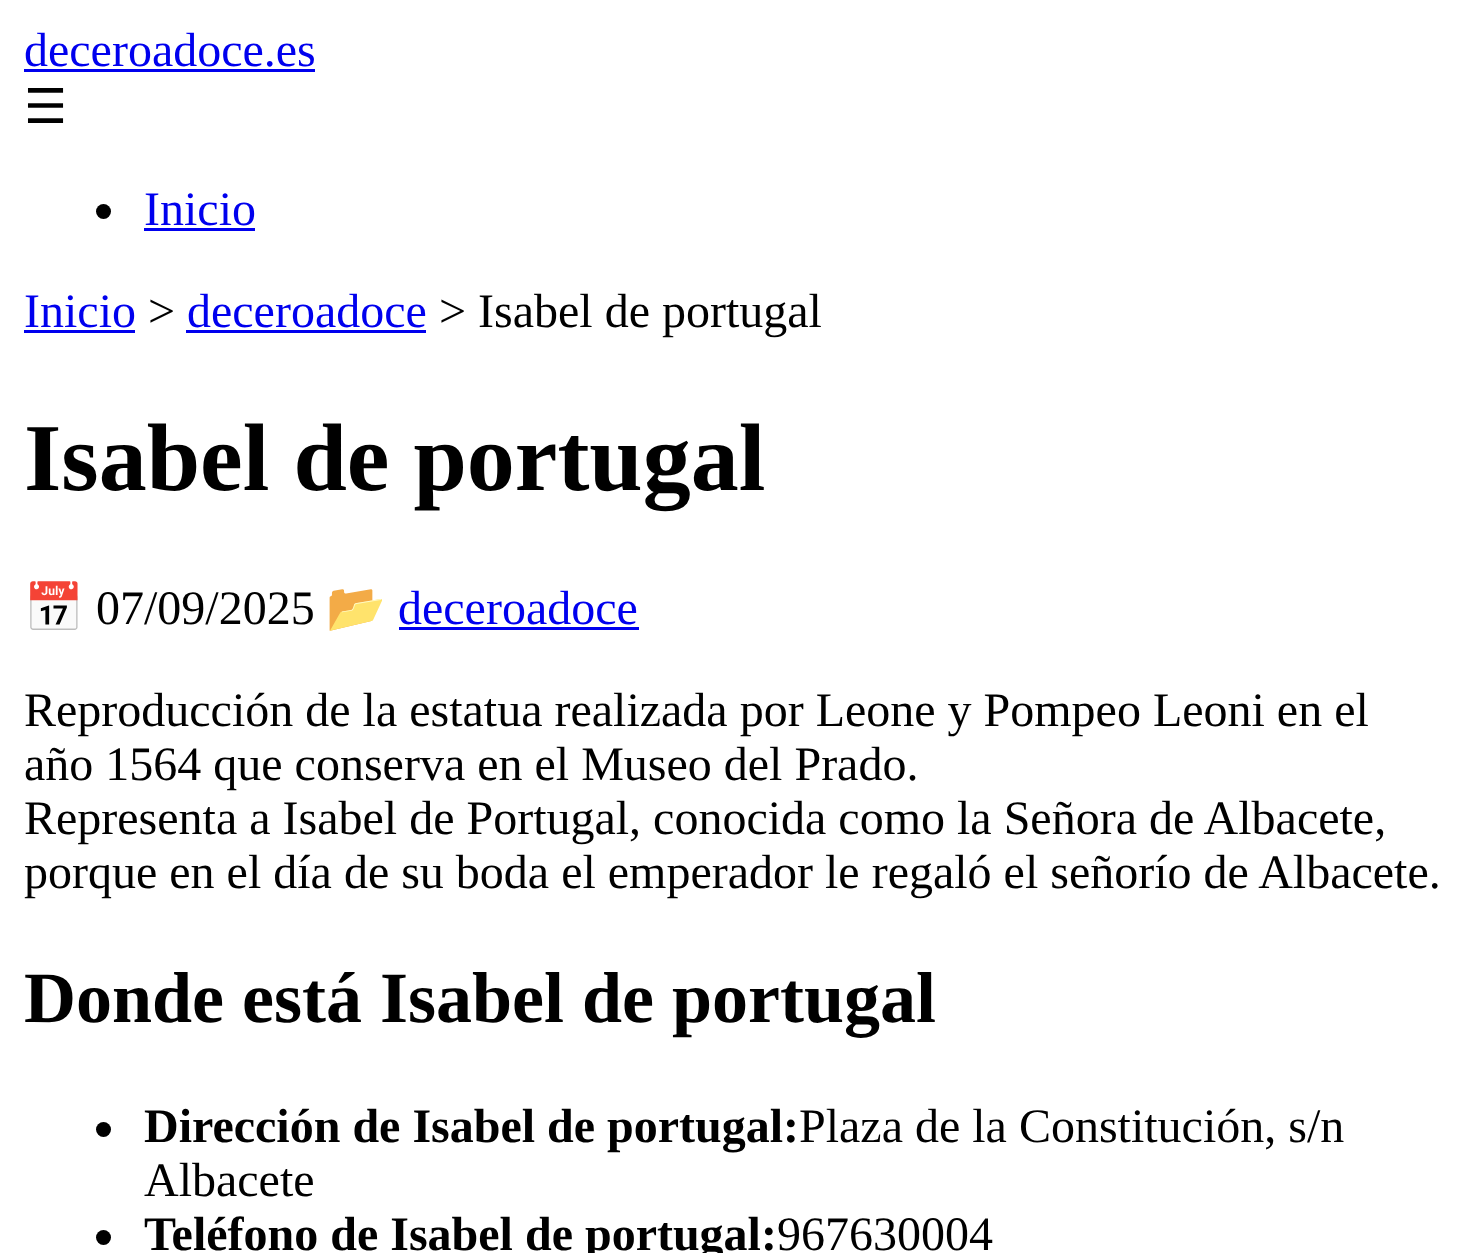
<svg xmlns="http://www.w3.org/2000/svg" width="1466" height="1253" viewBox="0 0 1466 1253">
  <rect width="100%" height="100%" fill="rgb(255,255,255)"/>
  <text x="24" y="66" font-family="Liberation Serif" font-size="48" fill="rgb(0,0,238)">deceroadoce.es</text>
  <rect x="24" y="69" width="291" height="3" fill="rgb(0,0,238)"/>
  <text x="24" y="123" font-family="DejaVu Sans" font-size="48" fill="rgb(0,0,0)">☰</text>
  <circle cx="103.5" cy="211.5" r="7.5" fill="rgb(0,0,0)"/>
  <text x="144" y="225" font-family="Liberation Serif" font-size="48" fill="rgb(0,0,238)">Inicio</text>
  <rect x="144" y="228" width="111" height="3" fill="rgb(0,0,238)"/>
  <text x="24" y="327" font-family="Liberation Serif" font-size="48" fill="rgb(0,0,238)">Inicio</text>
  <rect x="24" y="330" width="111" height="3" fill="rgb(0,0,238)"/>
  <text x="148" y="327" font-family="Liberation Serif" font-size="48" fill="rgb(0,0,0)">&gt;</text>
  <text x="187" y="327" font-family="Liberation Serif" font-size="48" fill="rgb(0,0,238)">deceroadoce</text>
  <rect x="186" y="330" width="240" height="3" fill="rgb(0,0,238)"/>
  <text x="439" y="327" font-family="Liberation Serif" font-size="48" fill="rgb(0,0,0)">&gt; Isabel de portugal</text>
  <text x="24" y="490" font-family="Liberation Serif" font-size="96" font-weight="bold" fill="rgb(0,0,0)">Isabel de portugal</text>
  <text x="24" y="624" font-family="Noto Color Emoji" font-size="48" fill="rgb(0,0,0)">📅</text>
  <text x="96" y="624" font-family="Liberation Serif" font-size="48" fill="rgb(0,0,0)">07/09/2025</text>
  <text x="326" y="624" font-family="Noto Color Emoji" font-size="48" fill="rgb(0,0,0)">📂</text>
  <text x="398" y="624" font-family="Liberation Serif" font-size="48" fill="rgb(0,0,238)">deceroadoce</text>
  <rect x="399" y="627" width="240" height="3" fill="rgb(0,0,238)"/>
  <g font-family="Liberation Serif" font-size="48" fill="rgb(0,0,0)">
    <text>
      <tspan x="24" y="726">Reproducción de la estatua realizada por Leone y Pompeo Leoni en el</tspan>
      <tspan x="24" y="780">año 1564 que conserva en el Museo del Prado.</tspan>
      <tspan x="24" y="834">Representa a Isabel de Portugal, conocida como la Señora de Albacete,</tspan>
      <tspan x="24" y="888">porque en el día de su boda el emperador le regaló el señorío de Albacete.</tspan>
    </text>
  </g>
  <text x="24" y="1022" font-family="Liberation Serif" font-size="72" font-weight="bold" fill="rgb(0,0,0)">Donde está Isabel de portugal</text>
  <circle cx="103.5" cy="1129.5" r="7.5" fill="rgb(0,0,0)"/>
  <text x="144" y="1142" font-family="Liberation Serif" font-size="48" font-weight="bold" fill="rgb(0,0,0)">Dirección de Isabel de portugal:</text>
  <g font-family="Liberation Serif" font-size="48" fill="rgb(0,0,0)">
    <text x="799" y="1142">Plaza de la Constitución, s/n</text>
    <text x="144" y="1196">Albacete</text>
  </g>
  <circle cx="103.5" cy="1237.5" r="7.5" fill="rgb(0,0,0)"/>
  <text x="144" y="1250" font-family="Liberation Serif" font-size="48" font-weight="bold" fill="rgb(0,0,0)">Teléfono de Isabel de portugal:</text>
  <text x="777" y="1250" font-family="Liberation Serif" font-size="48" fill="rgb(0,0,0)">967630004</text>
</svg>
